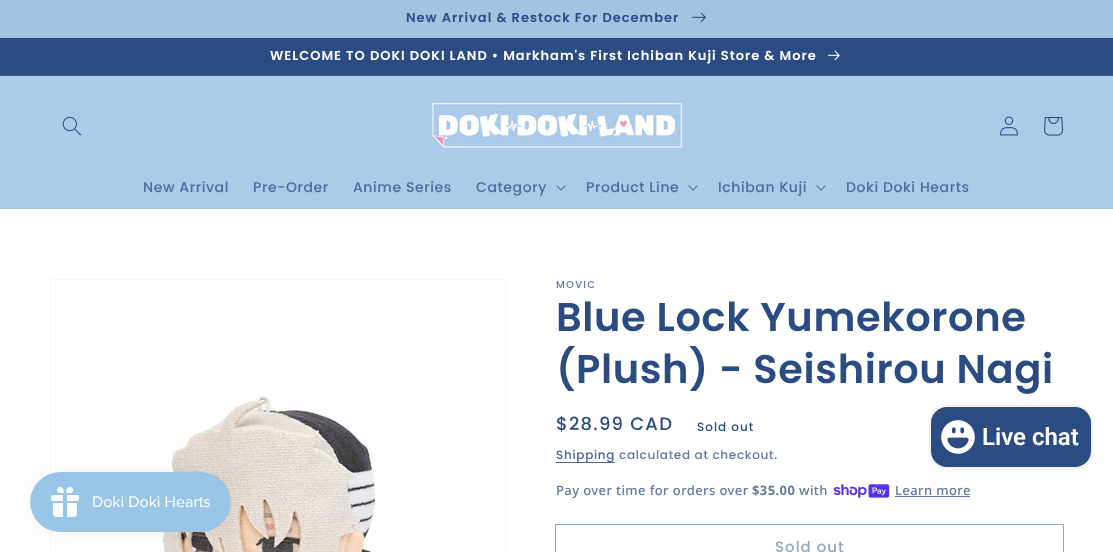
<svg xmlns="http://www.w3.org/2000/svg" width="1113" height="552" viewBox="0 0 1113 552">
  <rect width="100%" height="100%" fill="rgb(255,255,255)"/>
  <rect x="0" y="37" width="1113" height="1" fill="rgb(162,193,224)"/>
  <rect x="0" y="0" width="1113" height="37" fill="rgb(164,195,226)"/>
  <text x="406" y="22" font-family="Poppins" font-size="13" font-weight="600" letter-spacing="1" fill="rgb(43,76,130)">New Arrival &amp; Restock For December</text>
  <image x="692" y="12" width="14" height="11" href="pic1.png"/>
  <rect x="0" y="38" width="1113" height="37" fill="rgb(43,76,130)"/>
  <rect x="0" y="75" width="1113" height="1" fill="rgb(60,90,140)"/>
  <text x="270" y="60" font-family="Poppins" font-size="13" font-weight="600" letter-spacing="1" fill="rgb(255,255,255)">WELCOME TO DOKI DOKI LAND • Markham's First Ichiban Kuji Store &amp; More</text>
  <image x="828" y="50" width="12" height="11" href="pic2.png"/>
  <rect x="0" y="76" width="1113" height="132" fill="rgb(172,203,232)"/>
  <rect x="0" y="208" width="1113" height="1" fill="rgb(162,193,224)"/>
  <image x="62" y="116" width="19" height="20" href="pic3.png"/>
  <image x="432" y="103" width="250" height="45" href="pic4.png"/>
  <image x="1000" y="116" width="18" height="20" href="pic5.png"/>
  <image x="1044" y="117" width="20" height="19" href="pic6.png"/>
  <g font-family="Poppins" font-size="14" font-weight="500" letter-spacing="0.6" fill="rgb(75,108,156)">
    <text x="143" y="192">New Arrival</text>
    <text x="253" y="192">Pre-Order</text>
    <text x="353" y="192">Anime Series</text>
    <text x="476" y="192">Category</text>
  </g>
  <image x="556" y="185" width="10" height="6" href="pic7.png"/>
  <text x="586" y="192" font-family="Poppins" font-size="14" font-weight="500" letter-spacing="0.6" fill="rgb(75,108,156)">Product Line</text>
  <image x="688" y="185" width="10" height="6" href="pic7.png"/>
  <text x="718" y="192" font-family="Poppins" font-size="14" font-weight="500" letter-spacing="0.6" fill="rgb(75,108,156)">Ichiban Kuji</text>
  <image x="816" y="185" width="10" height="6" href="pic7.png"/>
  <text x="846" y="192" font-family="Poppins" font-size="14" font-weight="500" letter-spacing="0.6" fill="rgb(75,108,156)">Doki Doki Hearts</text>
  <rect x="50.5" y="279.5" width="455" height="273" fill="none" stroke="rgb(247,248,250)"/>
  <image x="162" y="396" width="215" height="156" href="pic8.png"/>
  <text x="556" y="288" font-family="Poppins" font-size="10" font-weight="500" letter-spacing="1.25" fill="rgb(96,121,161)">MOVIC</text>
  <g font-family="Poppins" font-size="40" font-weight="600" letter-spacing="0.6" fill="rgb(43,76,130)">
    <text>
      <tspan x="556" y="331">Blue Lock Yumekorone</tspan>
      <tspan x="556" y="383">(Plush) - Seishirou Nagi</tspan>
    </text>
  </g>
  <text x="556" y="430" font-family="Poppins" font-size="18" font-weight="500" letter-spacing="1.25" fill="rgb(43,76,130)">$28.99 CAD</text>
  <text x="697" y="431" font-family="Poppins" font-size="12" font-weight="500" letter-spacing="1" fill="rgb(43,76,130)">Sold out</text>
  <rect x="556" y="462" width="59" height="1" fill="rgb(75,103,149)"/>
  <text x="556" y="459" font-family="Poppins" font-size="12" font-weight="500" letter-spacing="0.7" fill="rgb(74,102,148)">Shipping</text>
  <text x="619" y="459" font-family="Poppins" font-size="12" font-weight="500" letter-spacing="0.7" fill="rgb(96,121,161)">calculated at checkout.</text>
  <text x="556" y="495" font-family="Noto Sans" font-size="13" font-weight="500" letter-spacing="0.4" fill="rgb(96,121,161)">Pay over time for orders over</text>
  <text x="752" y="495" font-family="Noto Sans" font-size="13" font-weight="bold" letter-spacing="0.4" fill="rgb(96,121,161)">$35.00</text>
  <text x="799" y="495" font-family="Noto Sans" font-size="13" font-weight="500" letter-spacing="0.4" fill="rgb(96,121,161)">with</text>
  <image x="833" y="484" width="57" height="14" href="pic9.png"/>
  <text x="895" y="495" font-family="Noto Sans" font-size="13" font-weight="500" letter-spacing="0.4" fill="rgb(96,121,161)">Learn more</text>
  <rect x="895" y="496" width="75" height="1" fill="rgb(96,121,161)"/>
  <rect x="555.5" y="524.5" width="508" height="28" fill="none" stroke="rgb(149,166,193)"/>
  <text x="775" y="552" font-family="Poppins" font-size="15" font-weight="500" letter-spacing="1" fill="rgb(149,166,193)">Sold out</text>
  <rect x="30" y="472" width="201" height="60" rx="30" fill="rgba(0,0,0,0.05)" filter="blur(12.5px)"/>
  <image x="30" y="472" width="201" height="60" href="pic10.png"/>
  <rect x="931" y="407" width="160" height="60" rx="16" fill="rgba(0,0,0,0.15)" filter="blur(2.5px)"/>
  <rect x="931" y="407" width="160" height="60" rx="16" fill="rgb(43,76,130)"/>
  <image x="941" y="420" width="34" height="34" href="pic11.png"/>
  <text x="982" y="445" font-family="Roboto" font-size="24" font-weight="600" fill="rgb(255,255,255)">Live chat</text>
</svg>
